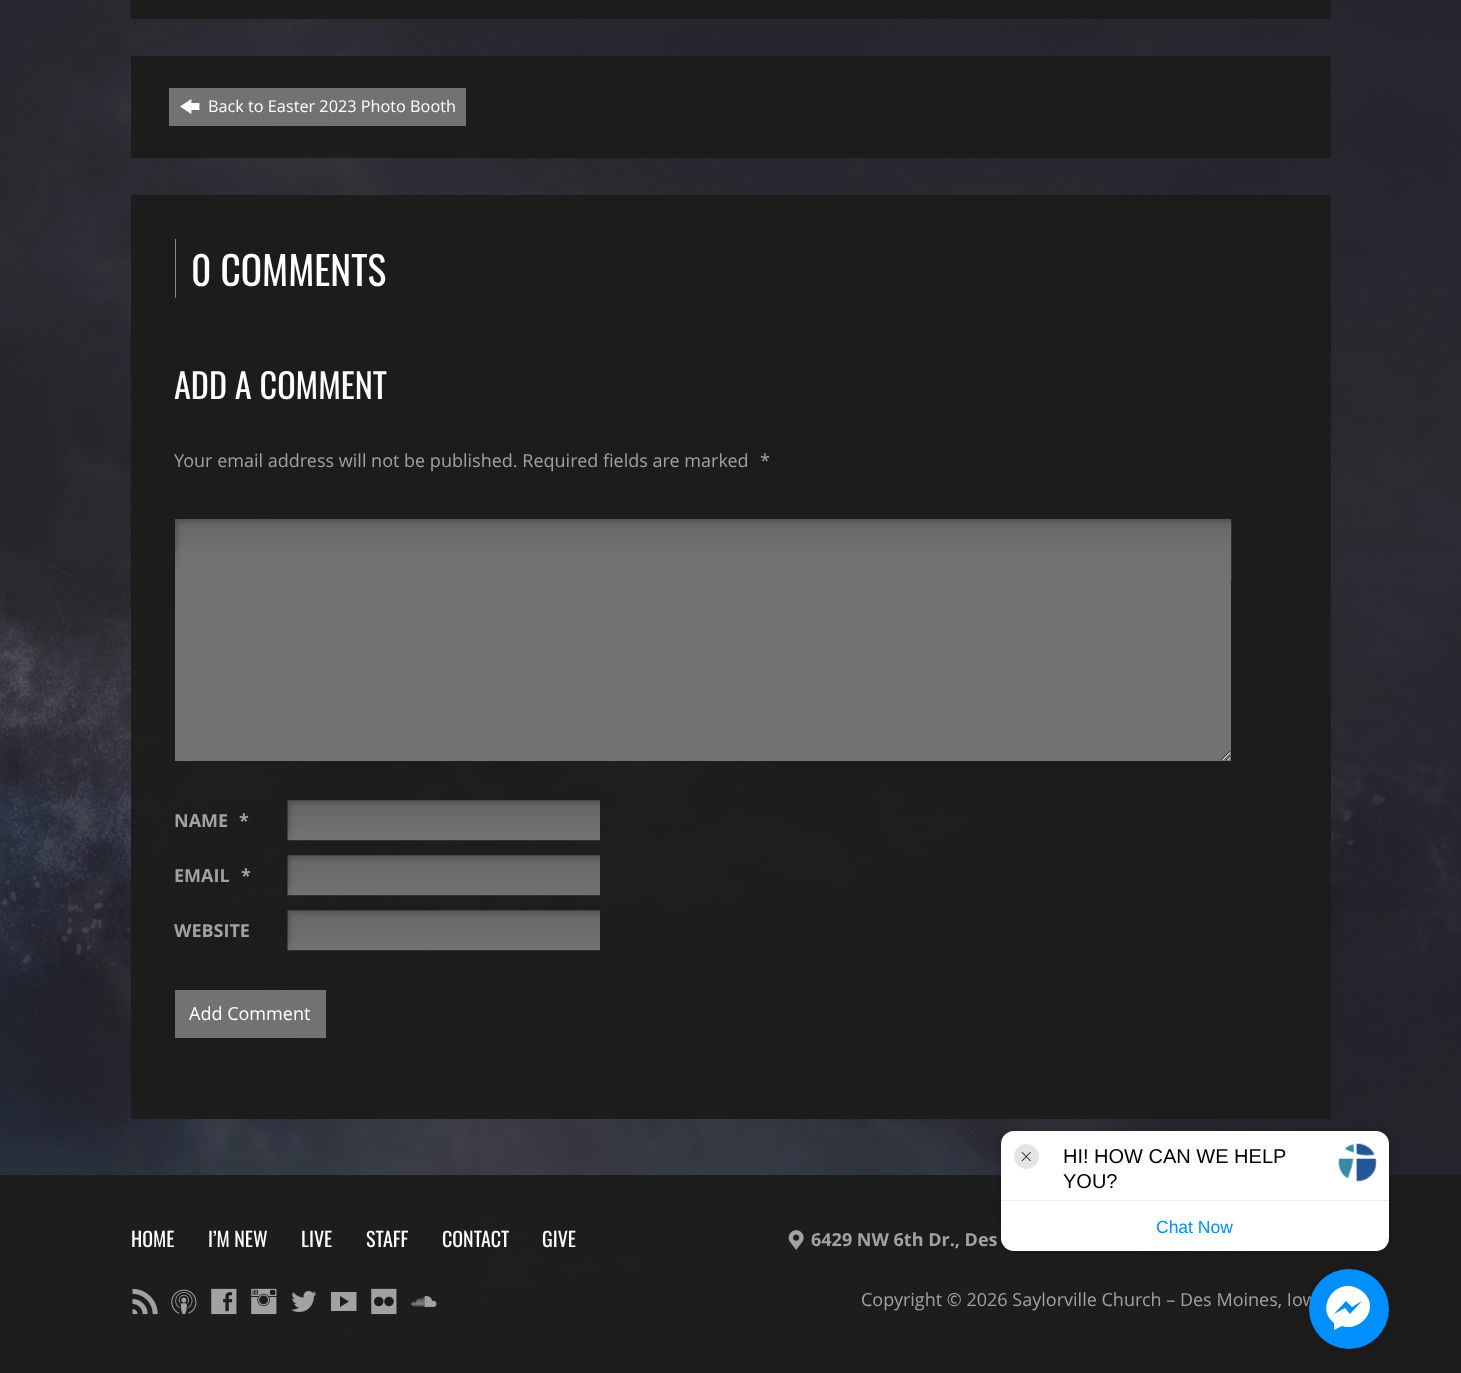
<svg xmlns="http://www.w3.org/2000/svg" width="1461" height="1373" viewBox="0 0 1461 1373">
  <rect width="100%" height="100%" fill="rgb(255,255,255)"/>
  <image x="0" y="0" width="1461" height="1373" href="pic1.png"/>
  <rect x="131" y="0" width="1200" height="19" fill="rgba(28,28,28,0.94)"/>
  <rect x="131" y="56" width="1200" height="102" fill="rgba(28,28,28,0.94)"/>
  <rect x="169" y="88" width="297" height="38" fill="rgb(114,114,114)"/>
  <image x="180" y="99" width="20" height="15" href="pic2.png"/>
  <text x="208" y="112" font-family="Open Sans" font-size="16.25" fill="rgb(255,255,255)">Back to Easter 2023 Photo Booth</text>
  <rect x="131" y="195" width="1200" height="924" fill="rgba(28,28,28,0.94)"/>
  <rect x="175" y="239" width="1" height="59" fill="rgb(134,134,134)"/>
  <text x="191" y="286" font-family="Oswald" font-size="39.5" fill="rgb(255,255,255)">0 COMMENTS</text>
  <text x="174" y="399" font-family="Oswald" font-size="34.25" fill="rgb(255,255,255)">ADD A COMMENT</text>
  <g font-family="Open Sans" font-size="18" fill="rgb(162,162,162)">
    <text x="174" y="467">Your email address will not be published. Required fields are marked</text>
    <text x="760" y="467">*</text>
  </g>
  <rect x="175" y="581" width="1056" height="180" fill="rgb(114,114,114)"/>
  <image x="175" y="519" width="1057" height="241" href="pic3.png"/>
  <g font-family="Open Sans" font-size="18" font-weight="bold" fill="rgb(162,162,162)">
    <text x="174" y="827">NAME</text>
    <text x="239" y="827">*</text>
  </g>
  <image x="287" y="800" width="313" height="41" href="pic4.png"/>
  <g font-family="Open Sans" font-size="18" font-weight="bold" fill="rgb(162,162,162)">
    <text x="174" y="882">EMAIL</text>
    <text x="241" y="882">*</text>
  </g>
  <image x="287" y="855" width="313" height="41" href="pic5.png"/>
  <text x="174" y="937" font-family="Open Sans" font-size="18" font-weight="bold" fill="rgb(162,162,162)">WEBSITE</text>
  <image x="287" y="910" width="313" height="41" href="pic6.png"/>
  <rect x="175" y="990" width="151" height="48" fill="rgb(114,114,114)"/>
  <text x="189" y="1020" font-family="Open Sans" font-size="18" fill="rgb(255,255,255)">Add Comment</text>
  <rect x="0" y="1175" width="1461" height="198" fill="rgba(28,28,28,0.94)"/>
  <g font-family="Oswald" font-size="20" fill="rgb(255,255,255)">
    <text x="131" y="1247">HOME</text>
    <text x="208" y="1247">I’M NEW</text>
    <text x="301" y="1247">LIVE</text>
    <text x="366" y="1247">STAFF</text>
    <text x="442" y="1247">CONTACT</text>
    <text x="542" y="1247">GIVE</text>
  </g>
  <image x="132" y="1288" width="26" height="27" href="pic7.png"/>
  <image x="171" y="1289" width="26" height="26" href="pic8.png"/>
  <image x="211" y="1288" width="26" height="27" href="pic9.png"/>
  <image x="251" y="1288" width="26" height="27" href="pic10.png"/>
  <image x="291" y="1291" width="26" height="21" href="pic11.png"/>
  <path d="M356.5 1311H331V1292H356.5ZM340 1307L349 1301.5L340 1296Z" fill="rgb(162,162,162)"/>
  <image x="371" y="1288" width="26" height="27" href="pic12.png"/>
  <image x="411" y="1296" width="26" height="11" href="pic13.png"/>
  <image x="788" y="1230" width="16" height="20" href="pic14.png"/>
  <text x="811" y="1246" font-family="Open Sans" font-size="18" font-weight="bold" fill="rgb(162,162,162)">6429 NW 6th Dr., Des</text>
  <text x="861" y="1306" font-family="Open Sans" font-size="18" fill="rgb(162,162,162)">Copyright © 2026 Saylorville Church – Des Moines, Iow</text>
  <rect x="1001" y="1131" width="388" height="120" rx="13" fill="rgba(0,0,0,0.2)" filter="blur(3px)"/>
  <rect x="1001" y="1131" width="388" height="120" rx="13" fill="rgb(255,255,255)"/>
  <circle cx="1026.5" cy="1156.5" r="12.5" fill="rgb(229,229,229)"/>
  <image x="1021" y="1152" width="10" height="10" href="pic15.png"/>
  <g font-family="Liberation Sans" font-size="20" fill="rgb(0,0,0)">
    <text>
      <tspan x="1063" y="1163">HI! HOW CAN WE HELP</tspan>
      <tspan x="1063" y="1188">YOU?</tspan>
    </text>
  </g>
  <image x="1338" y="1143" width="39" height="39" href="pic16.png"/>
  <rect x="1001" y="1200" width="388" height="1" fill="rgb(238,238,238)"/>
  <text x="1156" y="1233" font-family="Liberation Sans" font-size="17.5" fill="rgb(0,143,255)">Chat Now</text>
  <rect x="1309" y="1269" width="80" height="80" rx="40" fill="rgba(0,0,0,0.2)" filter="blur(3px)"/>
  <circle cx="1349" cy="1309" r="40" fill="rgb(0,143,255)"/>
  <path d="M1348 1286C1329 1286 1318 1311 1334 1323V1330L1342 1326C1363 1332 1381 1306 1362 1291C1358 1288 1353 1286 1348 1286ZM1350 1314L1345 1308L1334 1314L1346 1301L1352 1307L1362 1301Z" fill="rgb(255,255,255)"/>
</svg>
